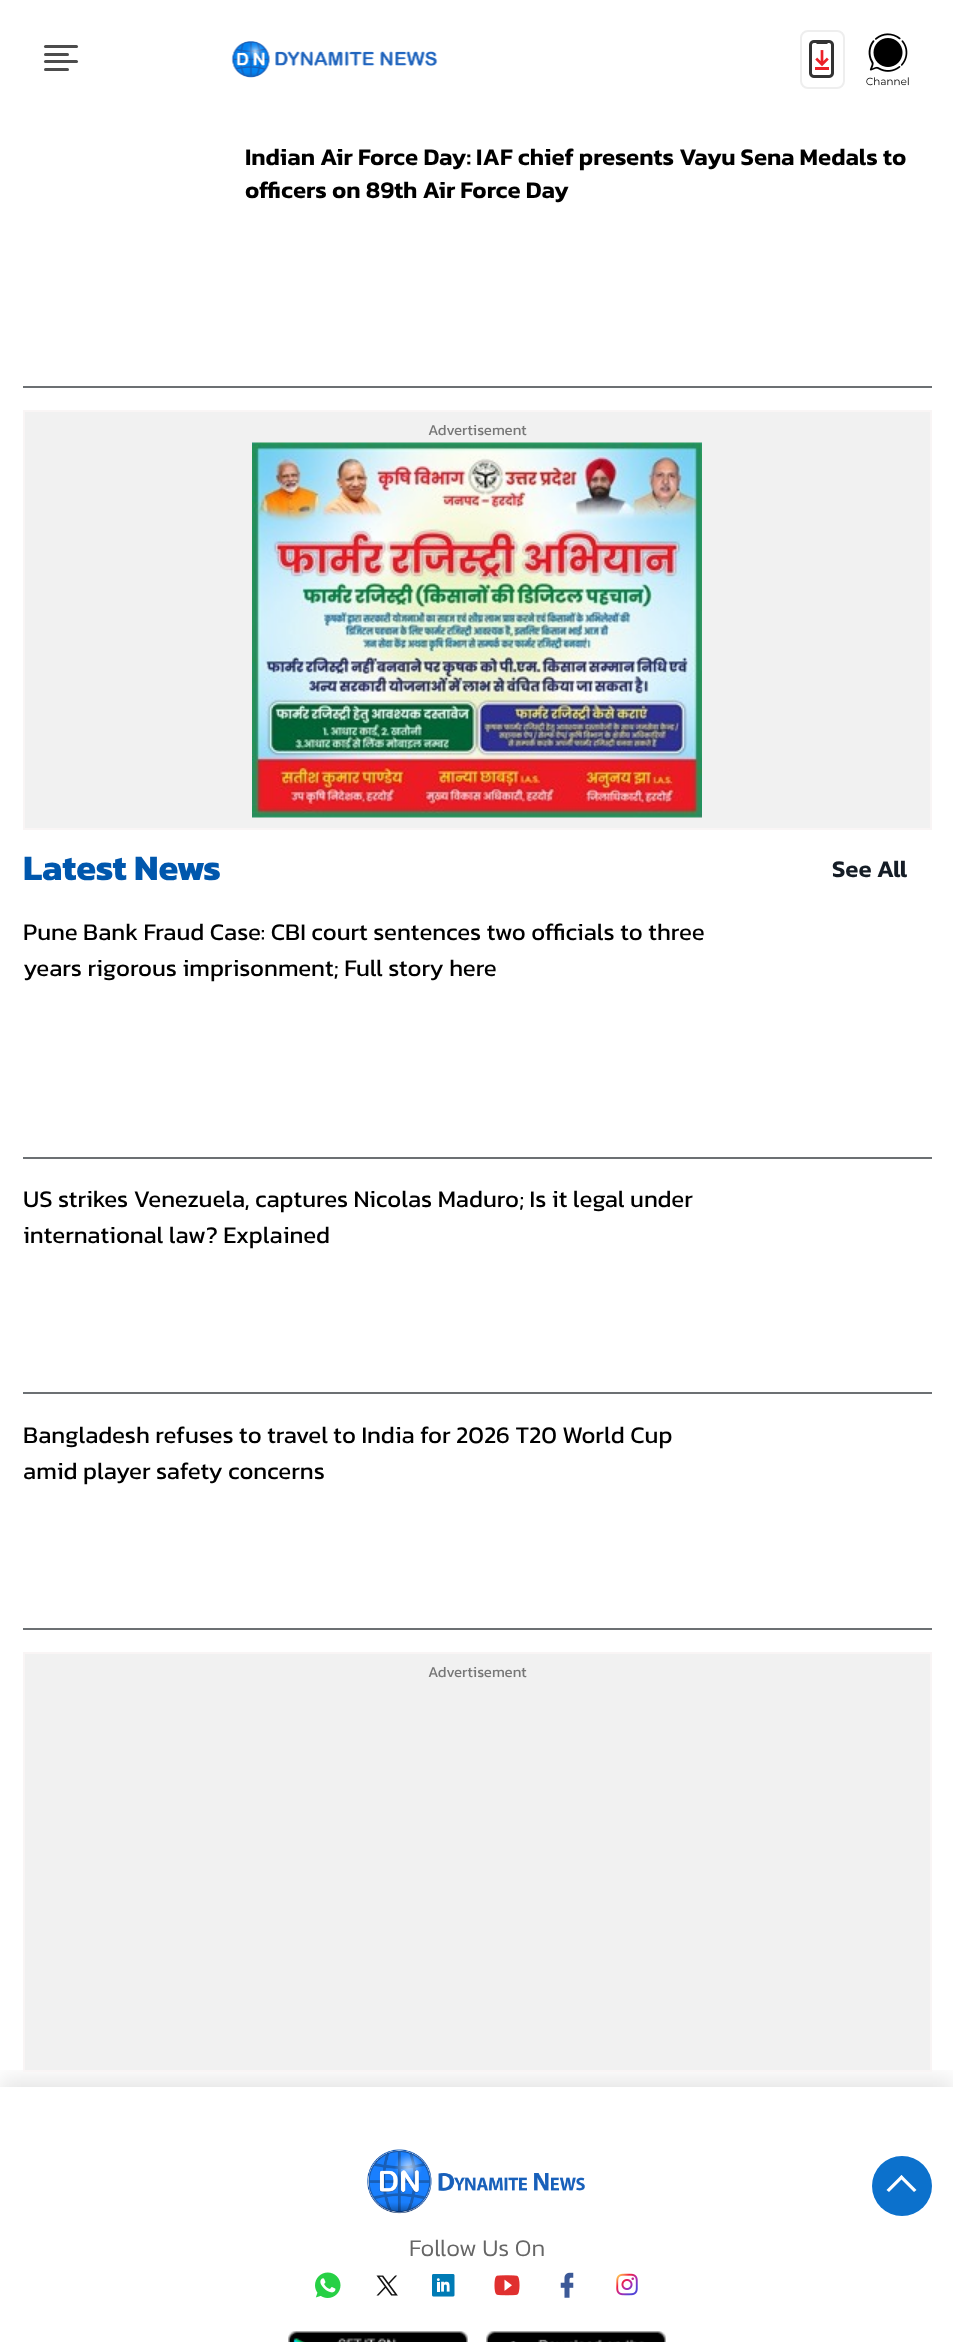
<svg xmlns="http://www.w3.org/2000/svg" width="953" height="2342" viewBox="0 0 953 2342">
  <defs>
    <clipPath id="clip1"><rect x="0" y="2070" width="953" height="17"/></clipPath>
  </defs>
  <rect width="100%" height="100%" fill="rgb(255,255,255)"/>
  <rect x="44" y="45" width="34" height="3" rx="1.5" fill="rgb(76,76,76)"/>
  <rect x="44" y="53" width="25" height="3" rx="1.5" fill="rgb(76,76,76)"/>
  <rect x="44" y="60" width="34" height="3" rx="1.5" fill="rgb(76,76,76)"/>
  <rect x="44" y="68" width="25" height="3" rx="1.5" fill="rgb(76,76,76)"/>
  <image x="231" y="41" width="207" height="37" href="pic1.png"/>
  <rect x="801" y="31" width="43" height="57" rx="7" fill="none" stroke="rgb(238,238,238)" stroke-width="2"/>
  <image x="809" y="40" width="25" height="38" href="pic2.png"/>
  <image x="866" y="33" width="43" height="53" href="pic3.png"/>
  <rect x="23" y="386" width="909" height="2" fill="rgb(108,112,115)"/>
  <g font-family="Kanit" font-size="24" font-weight="600" fill="rgb(0,0,0)">
    <text>
      <tspan x="245" y="165">Indian Air Force Day: IAF chief presents Vayu Sena Medals to</tspan>
      <tspan x="245" y="198">officers on 89th Air Force Day</tspan>
    </text>
  </g>
  <rect x="24" y="411" width="907" height="418" fill="rgb(241,241,241)" stroke="rgb(249,245,245)" stroke-width="2"/>
  <text x="428" y="435" font-family="Kanit" font-size="15" fill="rgb(119,119,119)">Advertisement</text>
  <image x="252" y="442" width="450" height="376" href="pic4.png"/>
  <text x="23" y="880" font-family="Kanit" font-size="36" font-weight="bold" fill="rgb(0,87,173)">Latest News</text>
  <text x="832" y="877" font-family="Kanit" font-size="24" font-weight="600" fill="rgb(21,29,38)">See All</text>
  <rect x="23" y="1157" width="909" height="2" fill="rgb(108,112,115)"/>
  <g font-family="Kanit" font-size="24" fill="rgb(0,0,0)">
    <text>
      <tspan x="23" y="940">Pune Bank Fraud Case: CBI court sentences two officials to three</tspan>
      <tspan x="23" y="976">years rigorous imprisonment; Full story here</tspan>
    </text>
  </g>
  <rect x="23" y="1392" width="909" height="2" fill="rgb(108,112,115)"/>
  <g font-family="Kanit" font-size="24" fill="rgb(0,0,0)">
    <text>
      <tspan x="23" y="1207">US strikes Venezuela, captures Nicolas Maduro; Is it legal under</tspan>
      <tspan x="23" y="1243">international law? Explained</tspan>
    </text>
  </g>
  <rect x="23" y="1628" width="909" height="2" fill="rgb(108,112,115)"/>
  <g font-family="Kanit" font-size="24" fill="rgb(0,0,0)">
    <text>
      <tspan x="23" y="1443">Bangladesh refuses to travel to India for 2026 T20 World Cup</tspan>
      <tspan x="23" y="1479">amid player safety concerns</tspan>
    </text>
  </g>
  <g clip-path="url(#clip1)">
    <rect x="0" y="2079" width="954" height="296" fill="rgba(0,0,0,0.1)" filter="blur(11px)"/>
  </g>
  <rect x="24" y="1653" width="907" height="418" fill="rgb(241,241,241)" stroke="rgb(249,245,245)" stroke-width="2"/>
  <text x="428" y="1677" font-family="Kanit" font-size="15" fill="rgb(119,119,119)">Advertisement</text>
  <circle cx="902" cy="2186" r="30" fill="rgb(12,113,204)"/>
  <path d="M889 2192L886.5 2190L901.5 2175L903.5 2177.5Z" fill="rgb(255,255,255)"/>
  <path d="M914 2192L899.5 2177.5L901.5 2175L916.5 2190Z" fill="rgb(255,255,255)"/>
  <image x="367" y="2149" width="218" height="65" href="pic5.png"/>
  <text x="409" y="2256" font-family="Kanit" font-size="24" font-weight="300" fill="rgb(102,102,102)">Follow Us On</text>
  <image x="315" y="2272" width="26" height="26" href="pic6.png"/>
  <image x="376" y="2275" width="22" height="21" href="pic7.png"/>
  <image x="432" y="2274" width="23" height="23" href="pic8.png"/>
  <image x="494" y="2275" width="26" height="21" href="pic9.png"/>
  <image x="560" y="2272" width="14" height="26" href="pic10.png"/>
  <image x="616" y="2273" width="22" height="23" href="pic11.png"/>
  <image x="288" y="2331" width="180" height="11" href="pic12.png"/>
  <image x="486" y="2331" width="180" height="11" href="pic13.png"/>
</svg>
